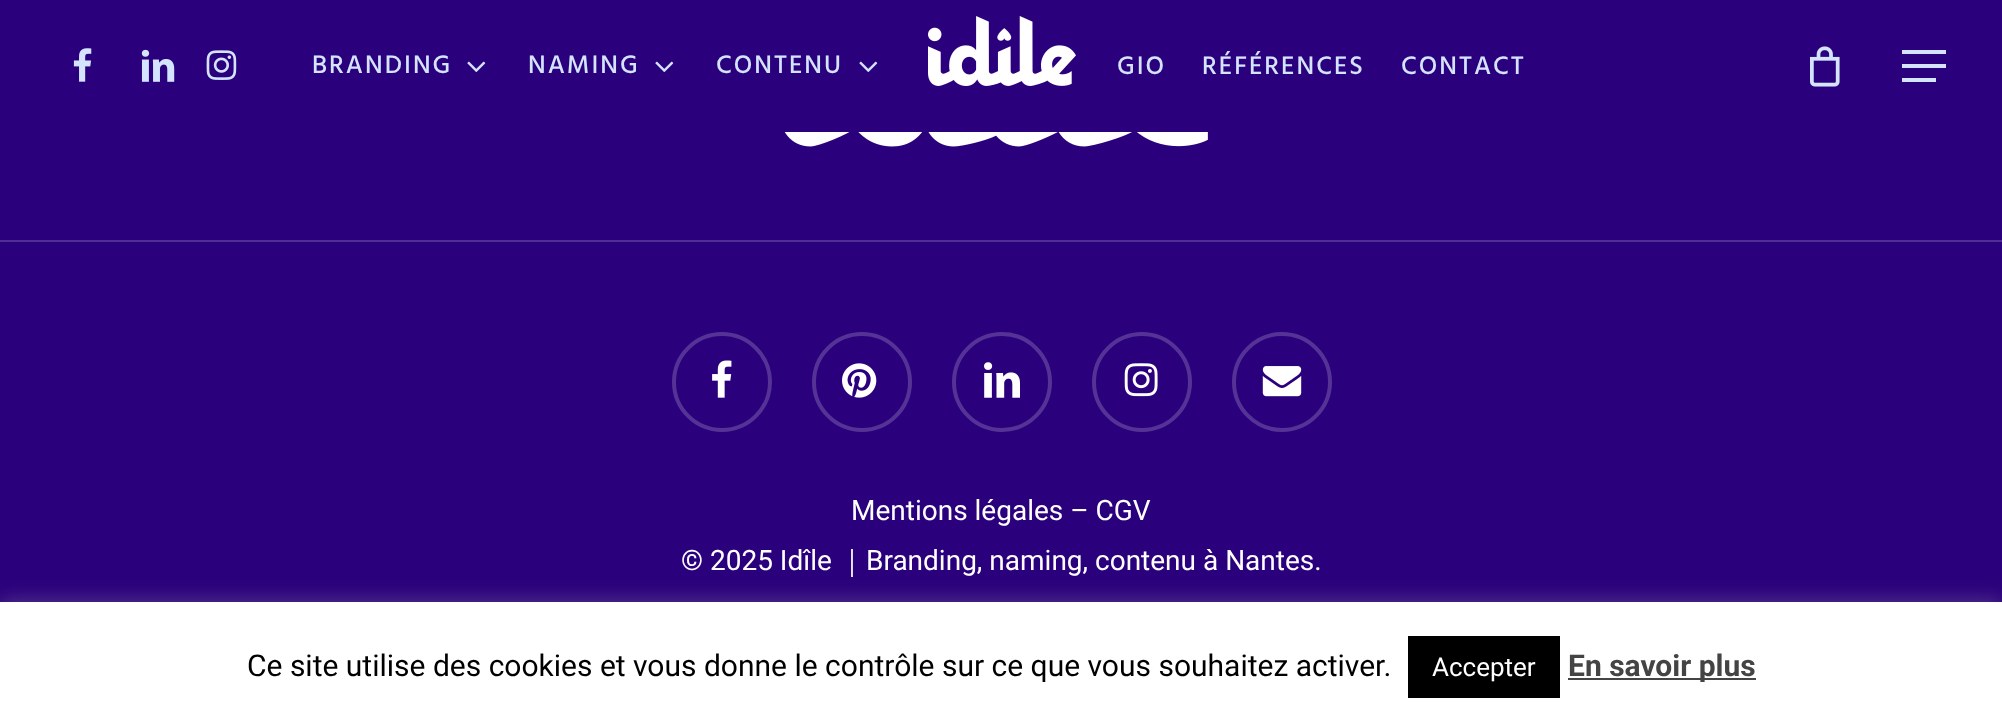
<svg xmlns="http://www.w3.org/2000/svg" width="2002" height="722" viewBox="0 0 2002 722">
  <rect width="100%" height="100%" fill="rgb(43,0,124)"/>
  <image x="928" y="16" width="148" height="70" href="pic1.png"/>
  <image x="73" y="48" width="19" height="34" href="pic2.png"/>
  <image x="141" y="49" width="34" height="33" href="pic3.png"/>
  <image x="206" y="50" width="31" height="30" href="pic4.png"/>
  <text x="312" y="73" font-family="Hind Madurai" font-size="26" font-weight="500" letter-spacing="2" fill="rgb(212,228,255)">BRANDING</text>
  <image x="467" y="61" width="19" height="11" href="pic5.png"/>
  <text x="528" y="73" font-family="Hind Madurai" font-size="26" font-weight="500" letter-spacing="2" fill="rgb(212,228,255)">NAMING</text>
  <image x="655" y="61" width="19" height="11" href="pic5.png"/>
  <text x="716" y="73" font-family="Hind Madurai" font-size="26" font-weight="500" letter-spacing="2" fill="rgb(212,228,255)">CONTENU</text>
  <image x="859" y="61" width="19" height="11" href="pic5.png"/>
  <g font-family="Hind Madurai" font-size="26" font-weight="500" letter-spacing="2" fill="rgb(212,228,255)">
    <text x="1117" y="74">GIO</text>
    <text x="1202" y="74">RÉFÉRENCES</text>
    <text x="1401" y="74">CONTACT</text>
  </g>
  <image x="1810" y="46" width="30" height="41" href="pic6.png"/>
  <rect x="1902" y="50" width="44" height="4" fill="rgb(212,228,255)"/>
  <rect x="1902" y="78" width="34" height="4" fill="rgb(212,228,255)"/>
  <rect x="1902" y="64" width="44" height="4" fill="rgb(212,228,255)"/>
  <image x="784" y="132" width="424" height="15" href="pic7.png"/>
  <rect x="0" y="240" width="2002" height="2" fill="rgb(81,46,148)"/>
  <image x="712" y="360" width="20" height="38" href="pic8.png"/>
  <circle cx="722" cy="382" r="48" fill="none" stroke="rgb(85,51,150)" stroke-width="4"/>
  <image x="842" y="363" width="35" height="35" href="pic9.png"/>
  <circle cx="862" cy="382" r="48" fill="none" stroke="rgb(85,51,150)" stroke-width="4"/>
  <image x="984" y="362" width="36" height="36" href="pic10.png"/>
  <circle cx="1002" cy="382" r="48" fill="none" stroke="rgb(85,51,150)" stroke-width="4"/>
  <image x="1124" y="363" width="34" height="34" href="pic11.png"/>
  <circle cx="1142" cy="382" r="48" fill="none" stroke="rgb(85,51,150)" stroke-width="4"/>
  <image x="1262" y="366" width="40" height="31" href="pic12.png"/>
  <circle cx="1282" cy="382" r="48" fill="none" stroke="rgb(85,51,150)" stroke-width="4"/>
  <g font-family="Roboto" font-size="28" fill="rgb(255,255,255)">
    <text x="851" y="520">Mentions légales – CGV</text>
    <text x="681" y="570">© 2025 Idîle</text>
  </g>
  <text x="838" y="570" font-family="WenQuanYi Zen Hei" font-size="28" font-weight="500" fill="rgb(255,255,255)">｜</text>
  <text x="866" y="570" font-family="Roboto" font-size="28" fill="rgb(255,255,255)">Branding, naming, contenu à Nantes.</text>
  <rect x="0" y="600" width="2002" height="120" fill="rgba(172,171,171,0.3)" filter="blur(10px)"/>
  <rect x="0" y="602" width="2002" height="120" fill="rgb(255,255,255)"/>
  <text x="247" y="676" font-family="Roboto" font-size="30" fill="rgb(0,0,0)">Ce site utilise des cookies et vous donne le contrôle sur ce que vous souhaitez activer.</text>
  <rect x="1408" y="636" width="152" height="62" fill="rgb(0,0,0)"/>
  <text x="1432" y="676" font-family="Roboto" font-size="26" fill="rgb(255,255,255)">Accepter</text>
  <rect x="1568" y="678" width="188" height="2" fill="rgb(68,68,68)"/>
  <text x="1568" y="676" font-family="Roboto" font-size="30" font-weight="bold" fill="rgb(68,68,68)">En savoir plus</text>
</svg>
